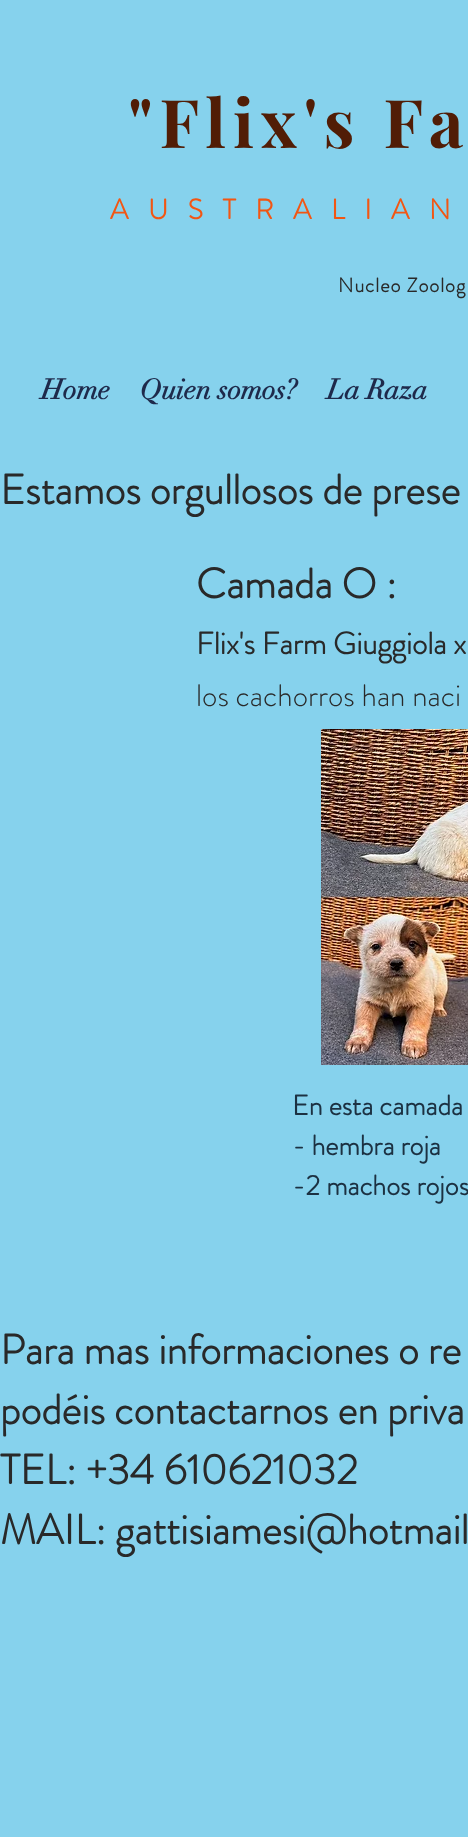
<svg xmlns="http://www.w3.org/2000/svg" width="468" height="1837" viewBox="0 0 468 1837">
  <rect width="100%" height="100%" fill="rgb(134,210,237)"/>
  <text x="128" y="148" font-family="Playfair Display" font-size="67" font-weight="bold" letter-spacing="6.75" fill="rgb(81,29,6)">"Flix's Fa</text>
  <text x="110" y="219" font-family="'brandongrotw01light'" font-size="28" font-weight="bold" letter-spacing="19.6" fill="rgb(242,86,19)">AUSTRALIAN</text>
  <text x="338" y="292" font-family="'brandongrotw01light'" font-size="20" font-weight="bold" letter-spacing="1" fill="rgb(41,41,41)">Nucleo Zoolog</text>
  <g font-family="didot" font-size="28" font-weight="bold" fill="rgb(30,42,75)">
    <text x="41" y="399">Home</text>
    <text x="140" y="399">Quien somos?</text>
    <text x="327" y="399">La Raza</text>
  </g>
  <g font-family="'brandongrotw01light'" font-size="42" font-weight="bold" fill="rgb(41,41,41)">
    <text x="0" y="504">Estamos orgullosos de prese</text>
    <text x="196" y="598">Camada O :</text>
  </g>
  <text x="196" y="654" font-family="'brandongrotw01light'" font-size="31" font-weight="bold" fill="rgb(41,41,41)">Flix's Farm Giuggiola x</text>
  <text x="196" y="706" font-family="'brandongrotw01light'" font-size="31" font-weight="300" fill="rgb(41,41,41)">los cachorros han naci</text>
  <image x="321" y="729" width="147" height="336" href="pic1.png"/>
  <g font-family="'brandongrotw01light'" font-size="28" font-weight="bold" fill="rgb(28,49,66)">
    <text>
      <tspan x="292" y="1115">En esta camada</tspan>
      <tspan x="292" y="1155">- hembra roja</tspan>
      <tspan x="292" y="1195">-2 machos rojos</tspan>
    </text>
  </g>
  <g font-family="'brandongrotw01light'" font-size="42" font-weight="bold" fill="rgb(41,41,41)">
    <text>
      <tspan x="0" y="1364">Para mas informaciones o re</tspan>
      <tspan x="0" y="1424">podéis contactarnos en priva</tspan>
      <tspan x="0" y="1484">TEL: +34 610621032</tspan>
      <tspan x="0" y="1544">MAIL: gattisiamesi@hotmail</tspan>
    </text>
  </g>
</svg>
